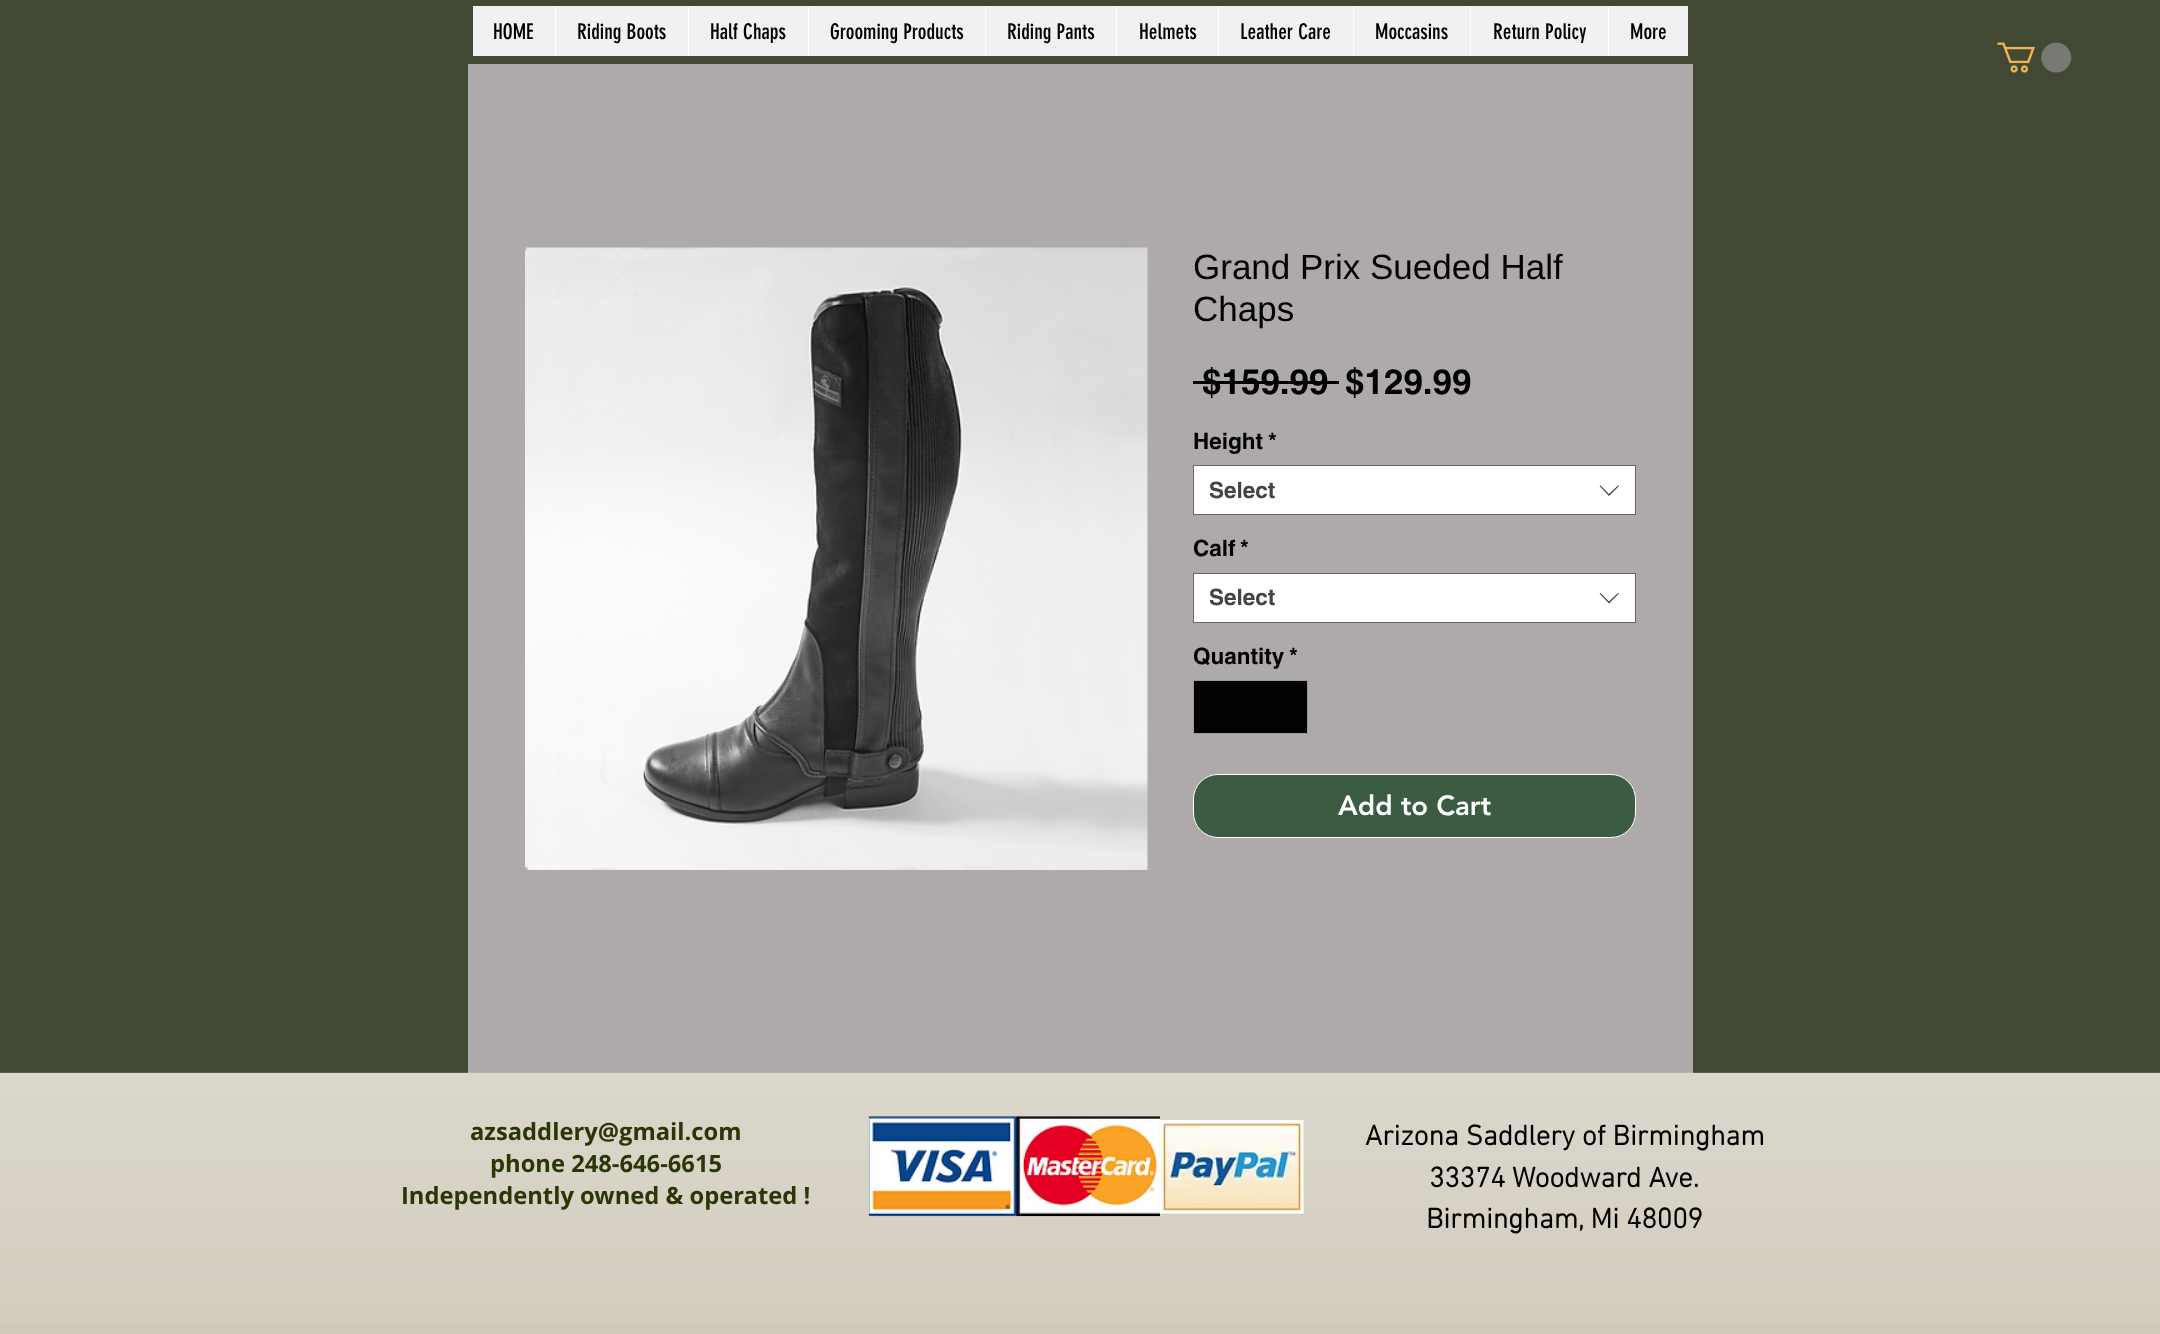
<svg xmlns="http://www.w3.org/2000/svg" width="2160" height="1334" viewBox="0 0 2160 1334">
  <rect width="100%" height="100%" fill="rgb(65,73,53)"/>
  <rect x="473" y="6" width="1215" height="50" fill="rgb(241,241,241)"/>
  <text x="493" y="39" font-family="'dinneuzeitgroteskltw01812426'" font-size="21.25" fill="rgb(2,2,2)">HOME</text>
  <rect x="555" y="6" width="1" height="50" fill="rgb(255,255,255)"/>
  <text x="577" y="39" font-family="'dinneuzeitgroteskltw01812426'" font-size="21.25" fill="rgb(2,2,2)">Riding Boots</text>
  <rect x="688" y="6" width="1" height="50" fill="rgb(255,255,255)"/>
  <text x="710" y="39" font-family="'dinneuzeitgroteskltw01812426'" font-size="21.25" fill="rgb(2,2,2)">Half Chaps</text>
  <rect x="808" y="6" width="1" height="50" fill="rgb(255,255,255)"/>
  <text x="830" y="39" font-family="'dinneuzeitgroteskltw01812426'" font-size="21.25" fill="rgb(2,2,2)">Grooming Products</text>
  <rect x="985" y="6" width="1" height="50" fill="rgb(255,255,255)"/>
  <text x="1007" y="39" font-family="'dinneuzeitgroteskltw01812426'" font-size="21.25" fill="rgb(2,2,2)">Riding Pants</text>
  <rect x="1116" y="6" width="1" height="50" fill="rgb(255,255,255)"/>
  <text x="1139" y="39" font-family="'dinneuzeitgroteskltw01812426'" font-size="21.25" fill="rgb(2,2,2)">Helmets</text>
  <rect x="1218" y="6" width="1" height="50" fill="rgb(255,255,255)"/>
  <text x="1240" y="39" font-family="'dinneuzeitgroteskltw01812426'" font-size="21.25" fill="rgb(2,2,2)">Leather Care</text>
  <rect x="1353" y="6" width="1" height="50" fill="rgb(255,255,255)"/>
  <text x="1375" y="39" font-family="'dinneuzeitgroteskltw01812426'" font-size="21.25" fill="rgb(2,2,2)">Moccasins</text>
  <rect x="1470" y="6" width="1" height="50" fill="rgb(255,255,255)"/>
  <text x="1493" y="39" font-family="'dinneuzeitgroteskltw01812426'" font-size="21.25" fill="rgb(2,2,2)">Return Policy</text>
  <rect x="1608" y="6" width="1" height="50" fill="rgb(255,255,255)"/>
  <text x="1630" y="39" font-family="'dinneuzeitgroteskltw01812426'" font-size="21.25" fill="rgb(2,2,2)">More</text>
  <image x="1997" y="42" width="75" height="31" href="pic1.png"/>
  <rect x="468" y="64" width="1225" height="1009" fill="rgb(175,170,170)"/>
  <image x="525" y="247" width="623" height="623" href="pic2.png"/>
  <g font-family="Liberation Sans" font-size="35" fill="rgb(2,2,2)">
    <text>
      <tspan x="1193" y="279">Grand Prix Sueded Half</tspan>
      <tspan x="1193" y="321">Chaps</tspan>
    </text>
  </g>
  <text x="1202" y="394" font-family="helvetica" font-size="35" font-weight="bold" fill="rgb(2,2,2)">$159.99</text>
  <rect x="1193" y="381" width="146" height="3" fill="rgb(2,2,2)"/>
  <text x="1345" y="394" font-family="helvetica" font-size="35" font-weight="bold" fill="rgb(2,2,2)">$129.99</text>
  <g font-family="helvetica" font-size="22.5" font-weight="bold" fill="rgb(2,2,2)">
    <text x="1193" y="449">Height</text>
    <text x="1268" y="449">*</text>
  </g>
  <rect x="1193.5" y="465.5" width="442" height="49" fill="rgb(255,255,255)" stroke="rgb(102,102,102)"/>
  <text x="1209" y="498" font-family="helvetica" font-size="22.5" font-weight="bold" fill="rgb(68,68,68)">Select</text>
  <path d="M1618 485.5L1619 486L1609 496L1599.5 486L1600.5 485.5L1609 494Z" fill="rgb(68,68,68)" fill-rule="evenodd"/>
  <g font-family="helvetica" font-size="22.5" font-weight="bold" fill="rgb(2,2,2)">
    <text x="1193" y="556">Calf</text>
    <text x="1240" y="556">*</text>
  </g>
  <rect x="1193.5" y="573.5" width="442" height="49" fill="rgb(255,255,255)" stroke="rgb(102,102,102)"/>
  <text x="1209" y="605" font-family="helvetica" font-size="22.5" font-weight="bold" fill="rgb(68,68,68)">Select</text>
  <path d="M1618 593L1619 593.5L1609 603.5L1599.5 593.5L1600.5 593L1609 601.5Z" fill="rgb(68,68,68)" fill-rule="evenodd"/>
  <g font-family="helvetica" font-size="22.5" font-weight="bold" fill="rgb(2,2,2)">
    <text x="1193" y="664">Quantity</text>
    <text x="1289" y="664">*</text>
  </g>
  <rect x="1193.5" y="680.5" width="114" height="53" fill="rgb(2,2,2)" stroke="rgb(154,154,154)"/>
  <rect x="1193.5" y="774.5" width="442" height="63" rx="24.5" fill="rgb(59,91,67)" stroke="rgb(255,255,255)"/>
  <text x="1338" y="815" font-family="'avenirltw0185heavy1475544'" font-size="27.5" font-weight="900" fill="rgb(255,255,255)">Add to Cart</text>
  <rect x="0" y="1073" width="2160" height="261" fill="rgb(208,202,187)"/>
  <image x="0" y="1072" width="2160" height="250" href="pic3.png"/>
  <g font-family="Open Sans" font-size="23.75" font-weight="bold" fill="rgb(43,54,7)">
    <text x="470" y="1140">azsaddlery@gmail.com</text>
    <text x="490" y="1172">phone 248-646-6615</text>
    <text x="401" y="1204">Independently owned &amp; operated !</text>
  </g>
  <image x="868" y="1116" width="292" height="101" href="pic4.png"/>
  <image x="1160" y="1120" width="144" height="94" href="pic5.png"/>
  <g font-family="'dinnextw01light'" font-size="28.75" font-weight="bold" fill="rgb(2,2,2)">
    <text x="1365" y="1145">Arizona Saddlery of Birmingham</text>
    <text x="1429" y="1187">33374 Woodward Ave.</text>
    <text x="1426" y="1228">Birmingham, Mi 48009</text>
  </g>
</svg>
